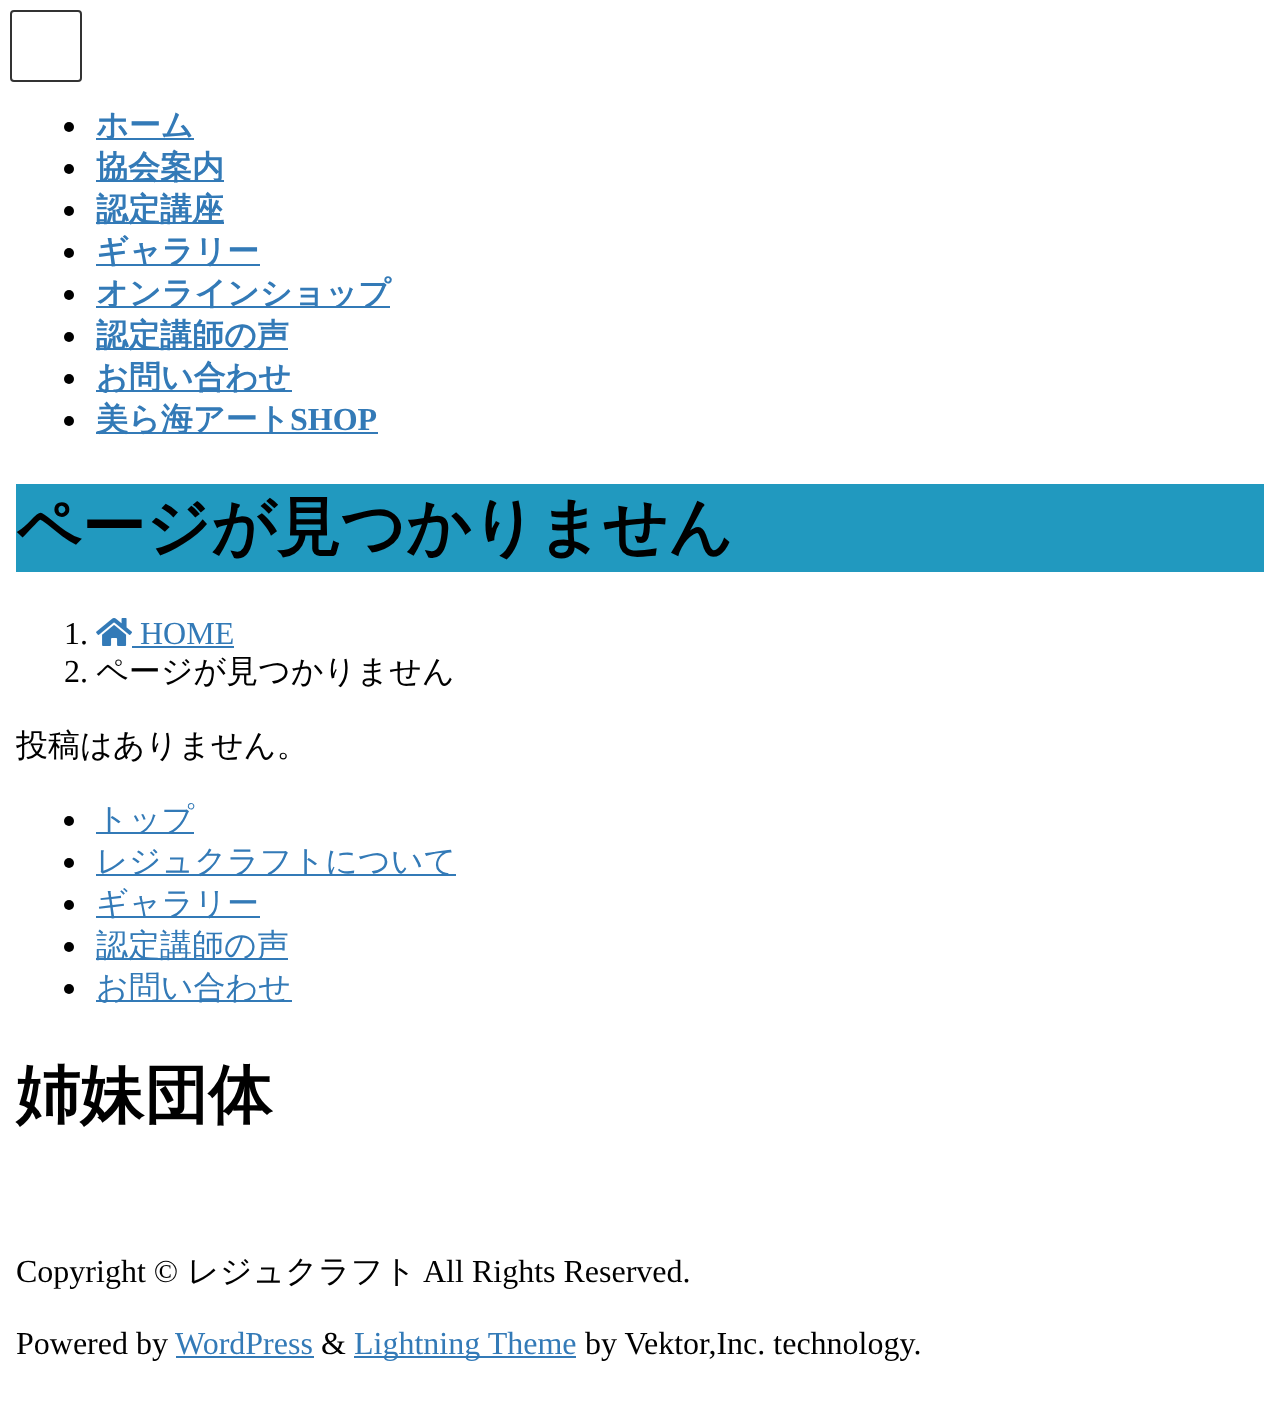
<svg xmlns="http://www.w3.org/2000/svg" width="1279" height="1408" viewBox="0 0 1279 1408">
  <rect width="100%" height="100%" fill="rgb(255,255,255)"/>
  <rect x="11" y="11" width="70" height="70" rx="3" fill="none" stroke="rgb(51,51,51)" stroke-width="2"/>
  <circle cx="69" cy="127" r="5" fill="rgb(0,0,0)"/>
  <rect x="96" y="138" width="98" height="2" fill="rgb(51,122,183)"/>
  <text x="96" y="136" font-family="WenQuanYi Zen Hei" font-size="32" font-weight="bold" fill="rgb(51,122,183)">ホーム</text>
  <circle cx="69" cy="169" r="5" fill="rgb(0,0,0)"/>
  <rect x="96" y="180" width="128" height="2" fill="rgb(51,122,183)"/>
  <text x="96" y="178" font-family="WenQuanYi Zen Hei" font-size="32" font-weight="bold" fill="rgb(51,122,183)">協会案内</text>
  <circle cx="69" cy="211" r="5" fill="rgb(0,0,0)"/>
  <rect x="96" y="222" width="128" height="2" fill="rgb(51,122,183)"/>
  <text x="96" y="220" font-family="WenQuanYi Zen Hei" font-size="32" font-weight="bold" fill="rgb(51,122,183)">認定講座</text>
  <circle cx="69" cy="253" r="5" fill="rgb(0,0,0)"/>
  <rect x="96" y="264" width="164" height="2" fill="rgb(51,122,183)"/>
  <text x="96" y="262" font-family="WenQuanYi Zen Hei" font-size="32" font-weight="bold" fill="rgb(51,122,183)">ギャラリー</text>
  <circle cx="69" cy="295" r="5" fill="rgb(0,0,0)"/>
  <rect x="96" y="306" width="294" height="2" fill="rgb(51,122,183)"/>
  <text x="96" y="304" font-family="WenQuanYi Zen Hei" font-size="32" font-weight="bold" fill="rgb(51,122,183)">オンラインショップ</text>
  <circle cx="69" cy="337" r="5" fill="rgb(0,0,0)"/>
  <rect x="96" y="348" width="192" height="2" fill="rgb(51,122,183)"/>
  <text x="96" y="346" font-family="WenQuanYi Zen Hei" font-size="32" font-weight="bold" fill="rgb(51,122,183)">認定講師の声</text>
  <circle cx="69" cy="379" r="5" fill="rgb(0,0,0)"/>
  <rect x="96" y="390" width="196" height="2" fill="rgb(51,122,183)"/>
  <text x="96" y="388" font-family="WenQuanYi Zen Hei" font-size="32" font-weight="bold" fill="rgb(51,122,183)">お問い合わせ</text>
  <circle cx="69" cy="421" r="5" fill="rgb(0,0,0)"/>
  <rect x="96" y="432" width="282" height="2" fill="rgb(51,122,183)"/>
  <text x="96" y="430" font-family="WenQuanYi Zen Hei" font-size="32" font-weight="bold" fill="rgb(51,122,183)">美ら海アート</text>
  <text x="290" y="430" font-family="Liberation Serif" font-size="32" font-weight="bold" fill="rgb(51,122,183)">SHOP</text>
  <rect x="16" y="484" width="1248" height="88" fill="rgb(33,153,191)"/>
  <text x="16" y="549" font-family="WenQuanYi Zen Hei" font-size="64" font-weight="bold" fill="rgb(0,0,0)">ページが見つかりません</text>
  <text x="64" y="644" font-family="Liberation Serif" font-size="32" fill="rgb(0,0,0)">1.</text>
  <image x="96" y="618" width="36" height="28" href="pic1.png"/>
  <text x="140" y="644" font-family="Liberation Serif" font-size="32" fill="rgb(51,122,183)">HOME</text>
  <rect x="132" y="646" width="102" height="2" fill="rgb(51,122,183)"/>
  <text x="64" y="682" font-family="Liberation Serif" font-size="32" fill="rgb(0,0,0)">2.</text>
  <g font-family="WenQuanYi Zen Hei" font-size="32" font-weight="500" fill="rgb(0,0,0)">
    <text x="96" y="682">ページが見つかりません</text>
    <text x="16" y="756">投稿はありません。</text>
  </g>
  <circle cx="69" cy="821" r="5" fill="rgb(0,0,0)"/>
  <rect x="96" y="832" width="98" height="2" fill="rgb(51,122,183)"/>
  <text x="96" y="830" font-family="WenQuanYi Zen Hei" font-size="32" font-weight="500" fill="rgb(51,122,183)">トップ</text>
  <circle cx="69" cy="863" r="5" fill="rgb(0,0,0)"/>
  <rect x="96" y="874" width="360" height="2" fill="rgb(51,122,183)"/>
  <text x="96" y="872" font-family="WenQuanYi Zen Hei" font-size="32" font-weight="500" fill="rgb(51,122,183)">レジュクラフトについて</text>
  <circle cx="69" cy="905" r="5" fill="rgb(0,0,0)"/>
  <rect x="96" y="916" width="164" height="2" fill="rgb(51,122,183)"/>
  <text x="96" y="914" font-family="WenQuanYi Zen Hei" font-size="32" font-weight="500" fill="rgb(51,122,183)">ギャラリー</text>
  <circle cx="69" cy="947" r="5" fill="rgb(0,0,0)"/>
  <rect x="96" y="958" width="192" height="2" fill="rgb(51,122,183)"/>
  <text x="96" y="956" font-family="WenQuanYi Zen Hei" font-size="32" font-weight="500" fill="rgb(51,122,183)">認定講師の声</text>
  <circle cx="69" cy="989" r="5" fill="rgb(0,0,0)"/>
  <rect x="96" y="1000" width="196" height="2" fill="rgb(51,122,183)"/>
  <text x="96" y="998" font-family="WenQuanYi Zen Hei" font-size="32" font-weight="500" fill="rgb(51,122,183)">お問い合わせ</text>
  <text x="16" y="1117" font-family="WenQuanYi Zen Hei" font-size="64" font-weight="bold" fill="rgb(0,0,0)">姉妹団体</text>
  <text x="16" y="1282" font-family="Liberation Serif" font-size="32" fill="rgb(0,0,0)">Copyright ©</text>
  <text x="187" y="1282" font-family="WenQuanYi Zen Hei" font-size="32" font-weight="500" fill="rgb(0,0,0)">レジュクラフト</text>
  <g font-family="Liberation Serif" font-size="32" fill="rgb(0,0,0)">
    <text x="423" y="1282">All Rights Reserved.</text>
    <text x="16" y="1354">Powered by</text>
  </g>
  <text x="175" y="1354" font-family="Liberation Serif" font-size="32" fill="rgb(51,122,183)">WordPress</text>
  <rect x="176" y="1356" width="138" height="2" fill="rgb(51,122,183)"/>
  <text x="321" y="1354" font-family="Liberation Serif" font-size="32" fill="rgb(0,0,0)">&amp;</text>
  <rect x="354" y="1356" width="222" height="2" fill="rgb(51,122,183)"/>
  <text x="354" y="1354" font-family="Liberation Serif" font-size="32" fill="rgb(51,122,183)">Lightning Theme</text>
  <text x="585" y="1354" font-family="Liberation Serif" font-size="32" fill="rgb(0,0,0)">by Vektor,Inc. technology.</text>
</svg>
